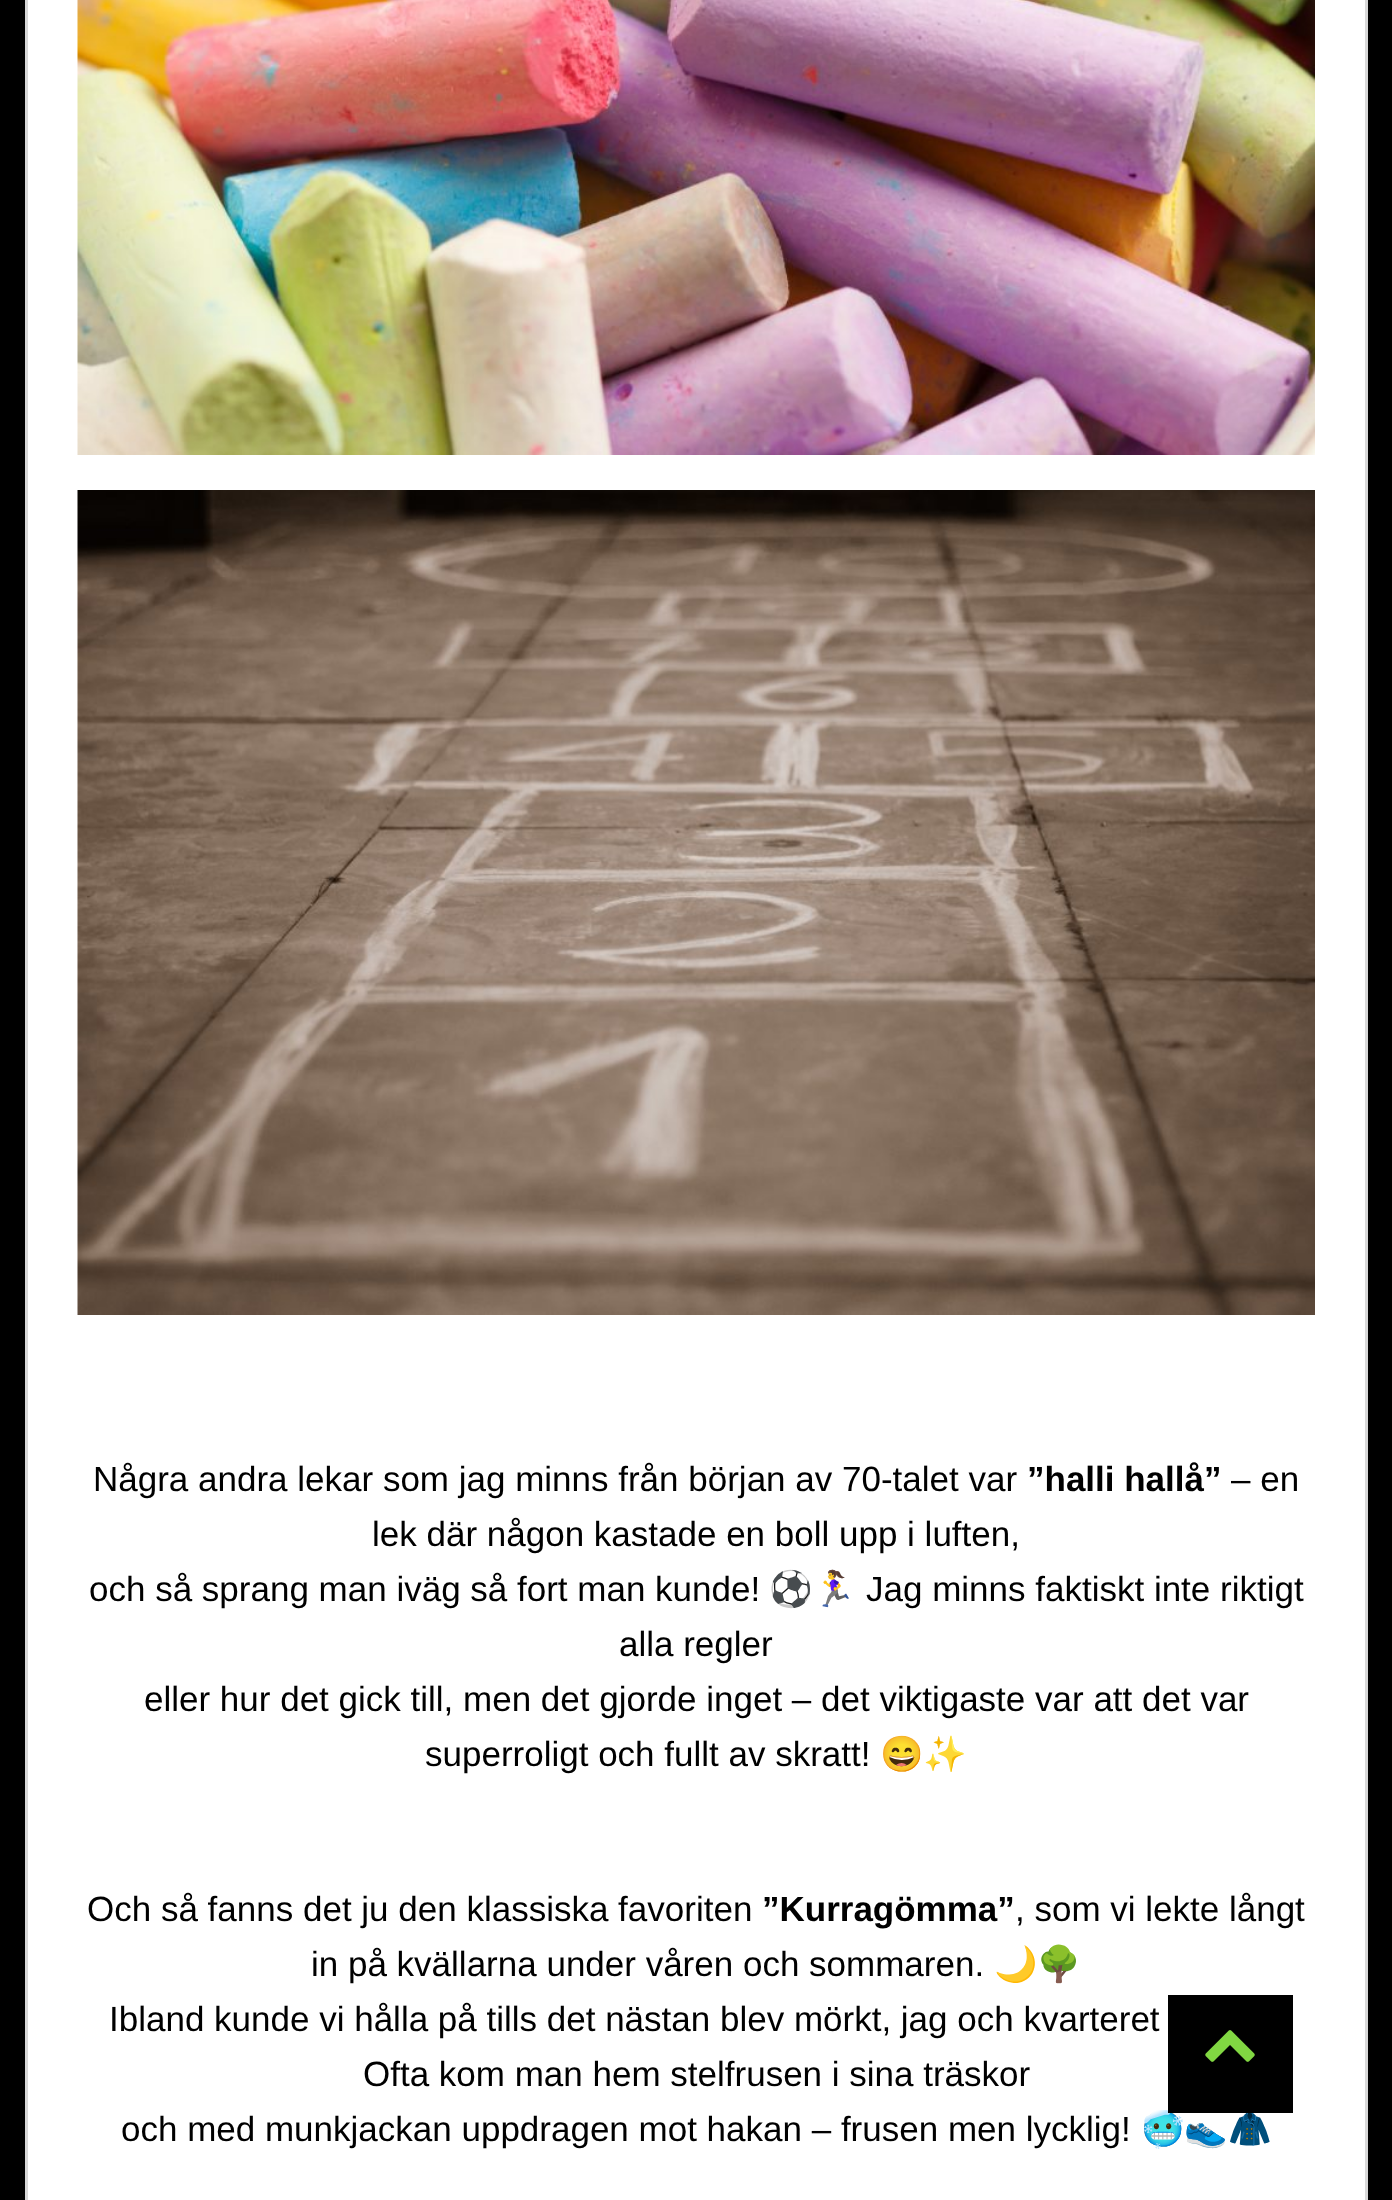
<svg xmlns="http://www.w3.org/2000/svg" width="1392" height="2200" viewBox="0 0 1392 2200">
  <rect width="100%" height="100%" fill="rgb(0,0,0)"/>
  <rect x="26.5" y="-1.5" width="1340" height="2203" fill="rgb(255,255,255)" stroke="rgb(216,216,216)" stroke-width="3"/>
  <image x="77" y="0" width="1238" height="455" href="pic1.png"/>
  <image x="77" y="490" width="1238" height="825" href="pic2.png"/>
  <text x="93" y="1491" font-family="Liberation Sans" font-size="35" fill="rgb(0,0,0)">Några andra lekar som jag minns från början av 70-talet var</text>
  <text x="1027" y="1491" font-family="Liberation Sans" font-size="35" font-weight="bold" fill="rgb(0,0,0)">”halli hallå”</text>
  <g font-family="Liberation Sans" font-size="35" fill="rgb(0,0,0)">
    <text x="1231" y="1491">– en</text>
    <text x="372" y="1546">lek där någon kastade en boll upp i luften,</text>
    <text x="89" y="1601">och så sprang man iväg så fort man kunde!</text>
  </g>
  <text x="769" y="1601" font-family="Noto Color Emoji" font-size="35" fill="rgb(0,0,0)">⚽🏃‍♀️</text>
  <g font-family="Liberation Sans" font-size="35" fill="rgb(0,0,0)">
    <text x="866" y="1601">Jag minns faktiskt inte riktigt</text>
    <text x="619" y="1656">alla regler</text>
    <text x="144" y="1711">eller hur det gick till, men det gjorde inget – det viktigaste var att det var</text>
    <text x="425" y="1766">superroligt och fullt av skratt!</text>
  </g>
  <text x="880" y="1766" font-family="Noto Color Emoji" font-size="35" fill="rgb(0,0,0)">😄✨</text>
  <text x="87" y="1921" font-family="Liberation Sans" font-size="35" fill="rgb(0,0,0)">Och så fanns det ju den klassiska favoriten</text>
  <text x="762" y="1921" font-family="Liberation Sans" font-size="35" font-weight="bold" fill="rgb(0,0,0)">”Kurragömma”</text>
  <g font-family="Liberation Sans" font-size="35" fill="rgb(0,0,0)">
    <text x="1015" y="1921">, som vi lekte långt</text>
    <text x="311" y="1976">in på kvällarna under våren och sommaren.</text>
  </g>
  <text x="994" y="1976" font-family="Noto Color Emoji" font-size="35" fill="rgb(0,0,0)">🌙🌳</text>
  <g font-family="Liberation Sans" font-size="35" fill="rgb(0,0,0)">
    <text x="109" y="2031">Ibland kunde vi hålla på tills det nästan blev mörkt, jag och kvarteret</text>
    <text x="363" y="2086">Ofta kom man hem stelfrusen i sina träskor</text>
    <text x="121" y="2141">och med munkjackan uppdragen mot hakan – frusen men lycklig!</text>
  </g>
  <text x="1141" y="2141" font-family="Noto Color Emoji" font-size="35" fill="rgb(0,0,0)">🥶👟🧥</text>
  <rect x="1168" y="1995" width="125" height="118" fill="rgb(0,0,0)"/>
  <image x="1205" y="2030" width="50" height="32" href="pic3.png"/>
</svg>
